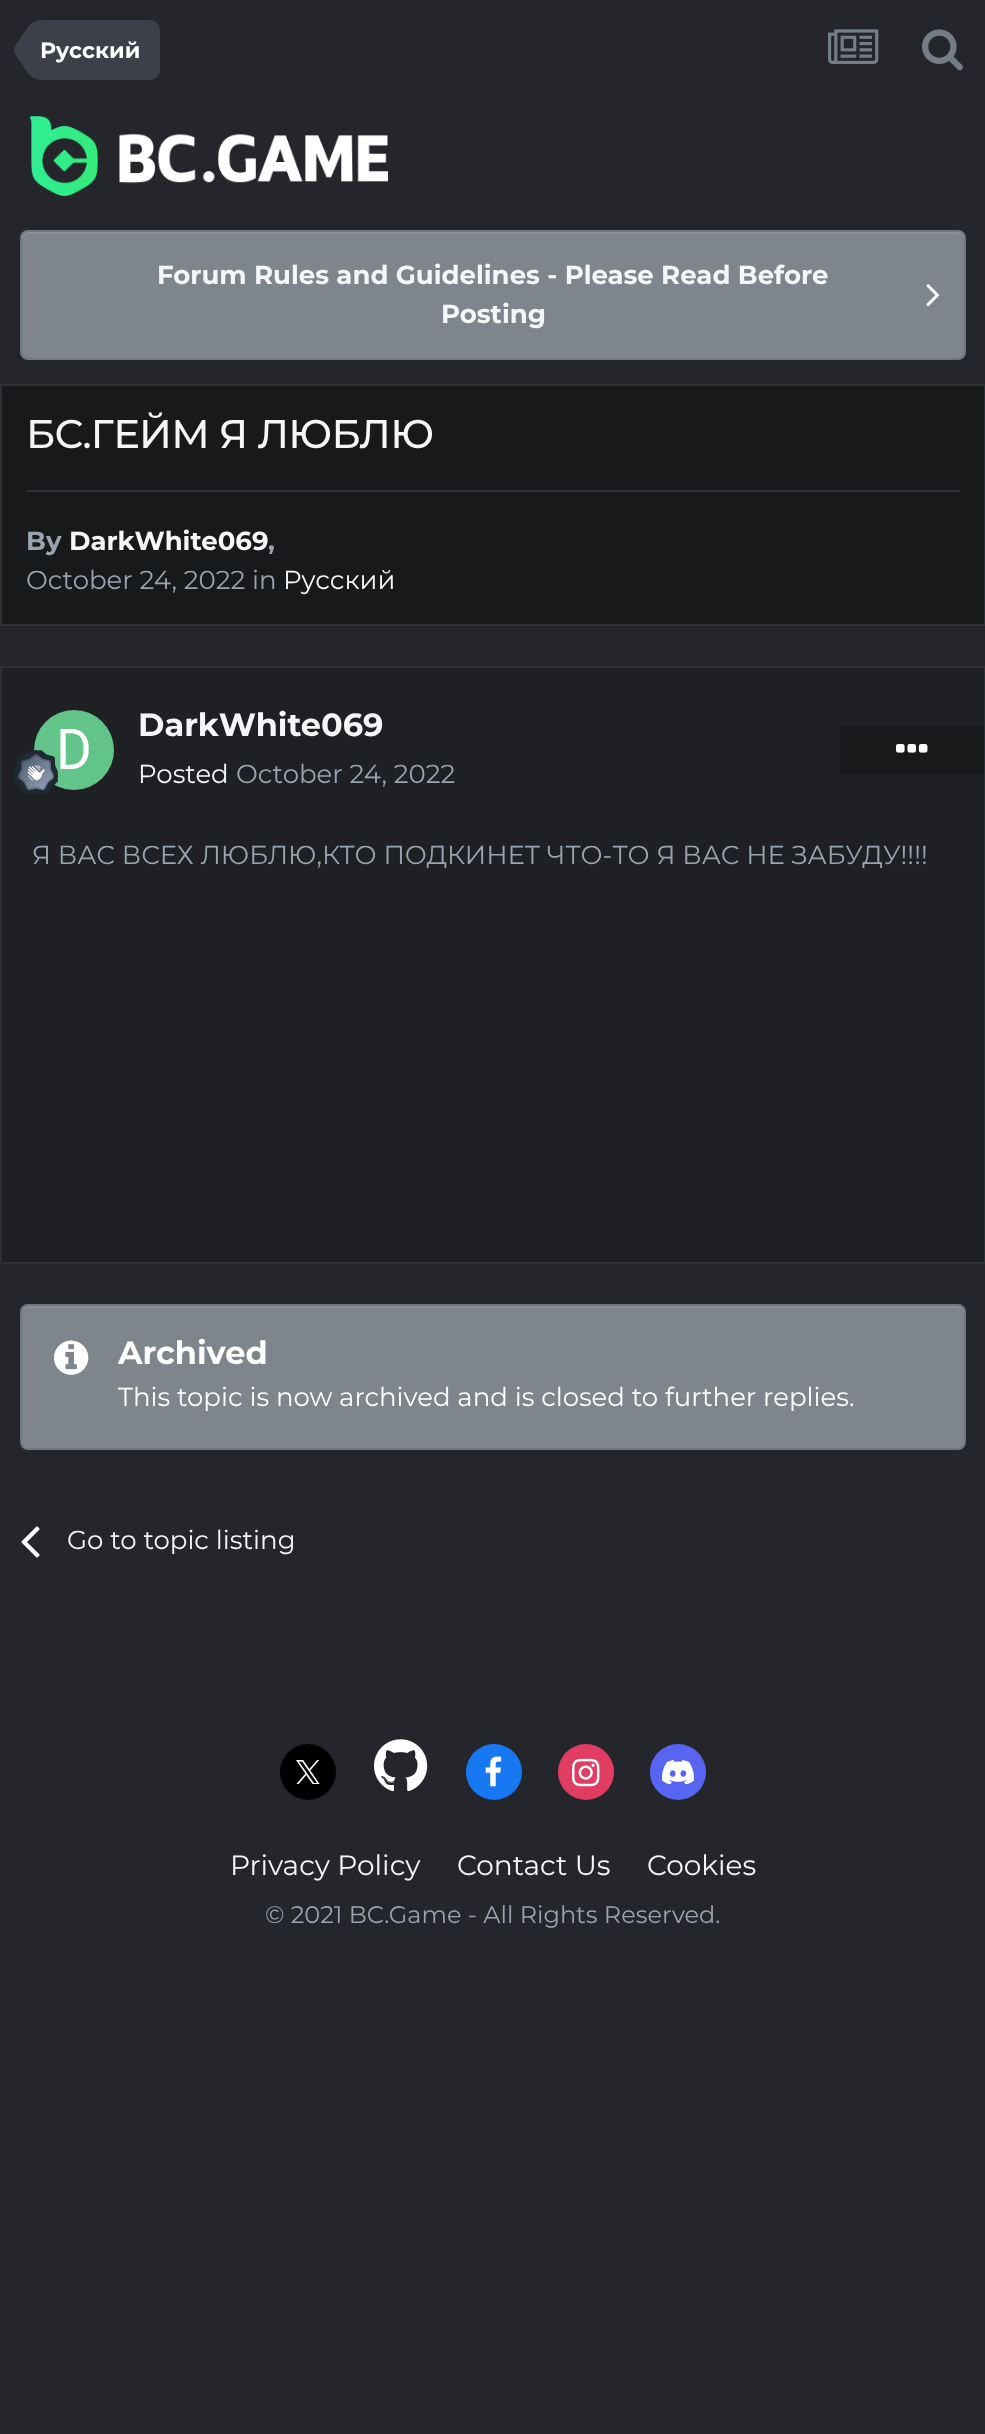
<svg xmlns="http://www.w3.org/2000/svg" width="985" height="2434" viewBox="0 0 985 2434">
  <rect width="100%" height="100%" fill="rgb(36,38,43)"/>
  <path d="M40 20H150C155.5 20 160 24.5 160 30V70C160 75.5 155.5 80 150 80H40Z" fill="rgb(60,64,74)"/>
  <path d="M52 27L56 33C62 42 62 58 56 67L52 73C45 82 35 82 28 73L15 54C14 52 14 48 15 46L28 27C35 18 45 18 52 27Z" fill="rgb(60,64,74)"/>
  <text x="40" y="58" font-family="Montserrat" font-size="22" font-weight="bold" fill="rgb(255,255,255)">Русский</text>
  <image x="828" y="29" width="51" height="35" href="pic1.png"/>
  <image x="922" y="29" width="41" height="42" href="pic2.png"/>
  <image x="30" y="116" width="358" height="80" href="pic3.png"/>
  <rect x="20" y="230" width="946" height="130" rx="8" fill="rgb(127,133,141)"/>
  <path d="M28 234H958C961 234 964 237 964 240V238C964 235 961 232 958 232H28C25 232 22 235 22 238V240C22 237 25 234 28 234Z" fill="rgb(140,145,152)"/>
  <rect x="21" y="231" width="944" height="128" rx="7" fill="none" stroke="rgba(0,0,0,0.1)" stroke-width="2"/>
  <text x="157" y="284" font-family="Montserrat" font-size="26" font-weight="bold" fill="rgb(245,246,247)">Forum Rules and Guidelines - Please Read Before</text>
  <image x="926" y="284" width="14" height="23" href="pic4.png"/>
  <text x="441" y="323" font-family="Montserrat" font-size="26" font-weight="bold" fill="rgb(245,246,247)">Posting</text>
  <rect x="1" y="385" width="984" height="240" fill="rgb(23,25,27)" stroke="rgb(45,48,53)" stroke-width="2"/>
  <text x="26" y="448" font-family="Montserrat" font-size="40" font-weight="500" letter-spacing="-0.75" fill="rgb(245,246,247)">БС.ГЕЙМ Я ЛЮБЛЮ</text>
  <rect x="26" y="490" width="934" height="2" fill="rgb(45,48,55)"/>
  <text x="26" y="550" font-family="Montserrat" font-size="26" font-weight="bold" fill="rgb(153,164,176)">By</text>
  <text x="69" y="550" font-family="Montserrat" font-size="26" font-weight="bold" fill="rgb(245,246,247)">DarkWhite069</text>
  <text x="268" y="550" font-family="Montserrat" font-size="26" font-weight="bold" fill="rgb(153,164,176)">,</text>
  <text x="26" y="589" font-family="Montserrat" font-size="26" fill="rgb(153,164,176)">October 24, 2022 in</text>
  <text x="283" y="589" font-family="Montserrat" font-size="26" fill="rgb(245,246,247)">Русский</text>
  <rect x="1" y="667" width="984" height="596" fill="rgb(30,32,36)" stroke="rgb(45,48,53)" stroke-width="2"/>
  <image x="34" y="710" width="80" height="80" href="pic5.png"/>
  <image x="14" y="750" width="44" height="44" href="pic6.png"/>
  <text x="138" y="736" font-family="Montserrat" font-size="32" font-weight="bold" fill="rgb(245,246,247)">DarkWhite069</text>
  <text x="138" y="783" font-family="Montserrat" font-size="26" fill="rgb(245,246,247)">Posted</text>
  <text x="236" y="783" font-family="Montserrat" font-size="26" fill="rgb(153,164,176)">October 24, 2022</text>
  <rect x="840" y="726" width="144" height="48" fill="rgb(23,25,27)"/>
  <image x="896" y="744" width="32" height="9" href="pic7.png"/>
  <text x="32" y="864" font-family="Montserrat" font-size="26" fill="rgb(153,164,176)">Я ВАС ВСЕХ ЛЮБЛЮ,КТО ПОДКИНЕТ ЧТО-ТО Я ВАС НЕ ЗАБУДУ!!!!</text>
  <rect x="20" y="1304" width="946" height="146" rx="8" fill="rgb(127,133,141)"/>
  <path d="M28 1308H958C961 1308 964 1311 964 1314V1312C964 1309 961 1306 958 1306H28C25 1306 22 1309 22 1312V1314C22 1311 25 1308 28 1308Z" fill="rgb(140,145,152)"/>
  <rect x="21" y="1305" width="944" height="144" rx="7" fill="none" stroke="rgba(0,0,0,0.1)" stroke-width="2"/>
  <image x="54" y="1340" width="35" height="35" href="pic8.png"/>
  <text x="118" y="1364" font-family="Montserrat" font-size="32" font-weight="bold" fill="rgb(255,255,255)">Archived</text>
  <text x="118" y="1406" font-family="Montserrat" font-size="26" fill="rgb(255,255,255)">This topic is now archived and is closed to further replies.</text>
  <image x="21" y="1526" width="19" height="32" href="pic9.png"/>
  <text x="67" y="1549" font-family="Montserrat" font-size="26" fill="rgb(245,246,247)">Go to topic listing</text>
  <circle cx="308" cy="1772" r="28" fill="rgb(0,0,0)"/>
  <image x="296" y="1760" width="24" height="24" href="pic10.png"/>
  <image x="374" y="1739" width="54" height="53" href="pic11.png"/>
  <circle cx="494" cy="1772" r="28" fill="rgb(23,120,242)"/>
  <image x="485" y="1756" width="17" height="31" href="pic12.png"/>
  <circle cx="586" cy="1772" r="28" fill="rgb(225,61,98)"/>
  <image x="572" y="1758" width="28" height="29" href="pic13.png"/>
  <circle cx="678" cy="1772" r="28" fill="rgb(88,101,242)"/>
  <image x="662" y="1760" width="32" height="24" href="pic14.png"/>
  <g font-family="Montserrat" font-size="28" fill="rgb(245,246,247)">
    <text x="230" y="1875">Privacy Policy</text>
    <text x="457" y="1875">Contact Us</text>
    <text x="647" y="1875">Cookies</text>
  </g>
  <text x="265" y="1923" font-family="Montserrat" font-size="24" fill="rgb(153,164,176)">© 2021 BC.Game - All Rights Reserved.</text>
</svg>
